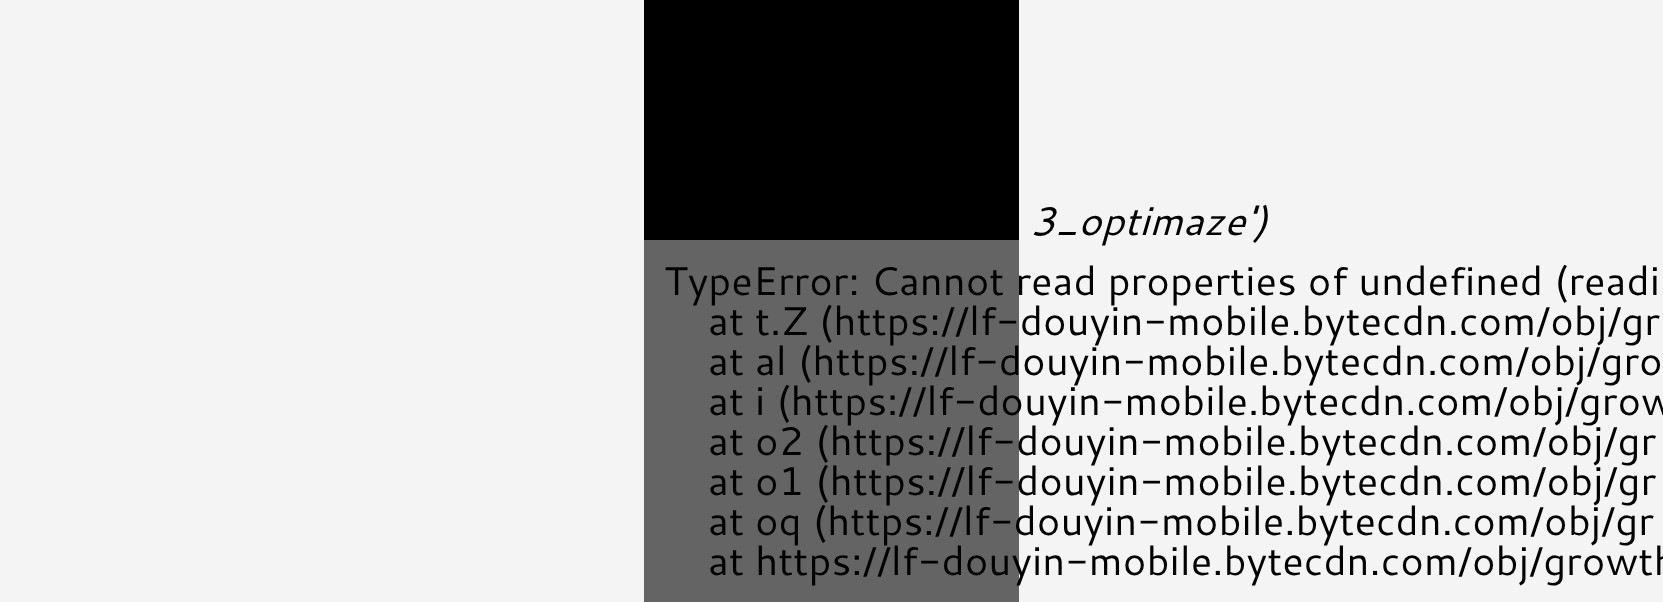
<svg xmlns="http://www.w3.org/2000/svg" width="1663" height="602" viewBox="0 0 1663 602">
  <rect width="100%" height="100%" fill="rgb(244,244,244)"/>
  <rect x="644" y="0" width="375" height="240" fill="rgb(0,0,0)"/>
  <text x="1030" y="235" font-family="Cantarell" font-size="40" font-style="italic" fill="rgb(0,0,0)">3_optimaze')</text>
  <rect x="644" y="240" width="375" height="362" fill="rgb(100,100,100)"/>
  <g font-family="Cantarell" font-size="40" fill="rgb(0,0,0)">
    <text x="664" y="295">TypeError: Cannot read properties of undefined (readi</text>
    <text>
      <tspan x="708" y="335">at t.Z (https://lf-douyin-mobile.bytecdn.com/obj/gr</tspan>
      <tspan x="708" y="375">at al (https://lf-douyin-mobile.bytecdn.com/obj/gro</tspan>
      <tspan x="708" y="415">at i (https://lf-douyin-mobile.bytecdn.com/obj/grow</tspan>
      <tspan x="708" y="455">at o2 (https://lf-douyin-mobile.bytecdn.com/obj/gr</tspan>
      <tspan x="708" y="495">at o1 (https://lf-douyin-mobile.bytecdn.com/obj/gr</tspan>
      <tspan x="708" y="535">at oq (https://lf-douyin-mobile.bytecdn.com/obj/gr</tspan>
      <tspan x="708" y="575">at https://lf-douyin-mobile.bytecdn.com/obj/growth</tspan>
    </text>
  </g>
</svg>
